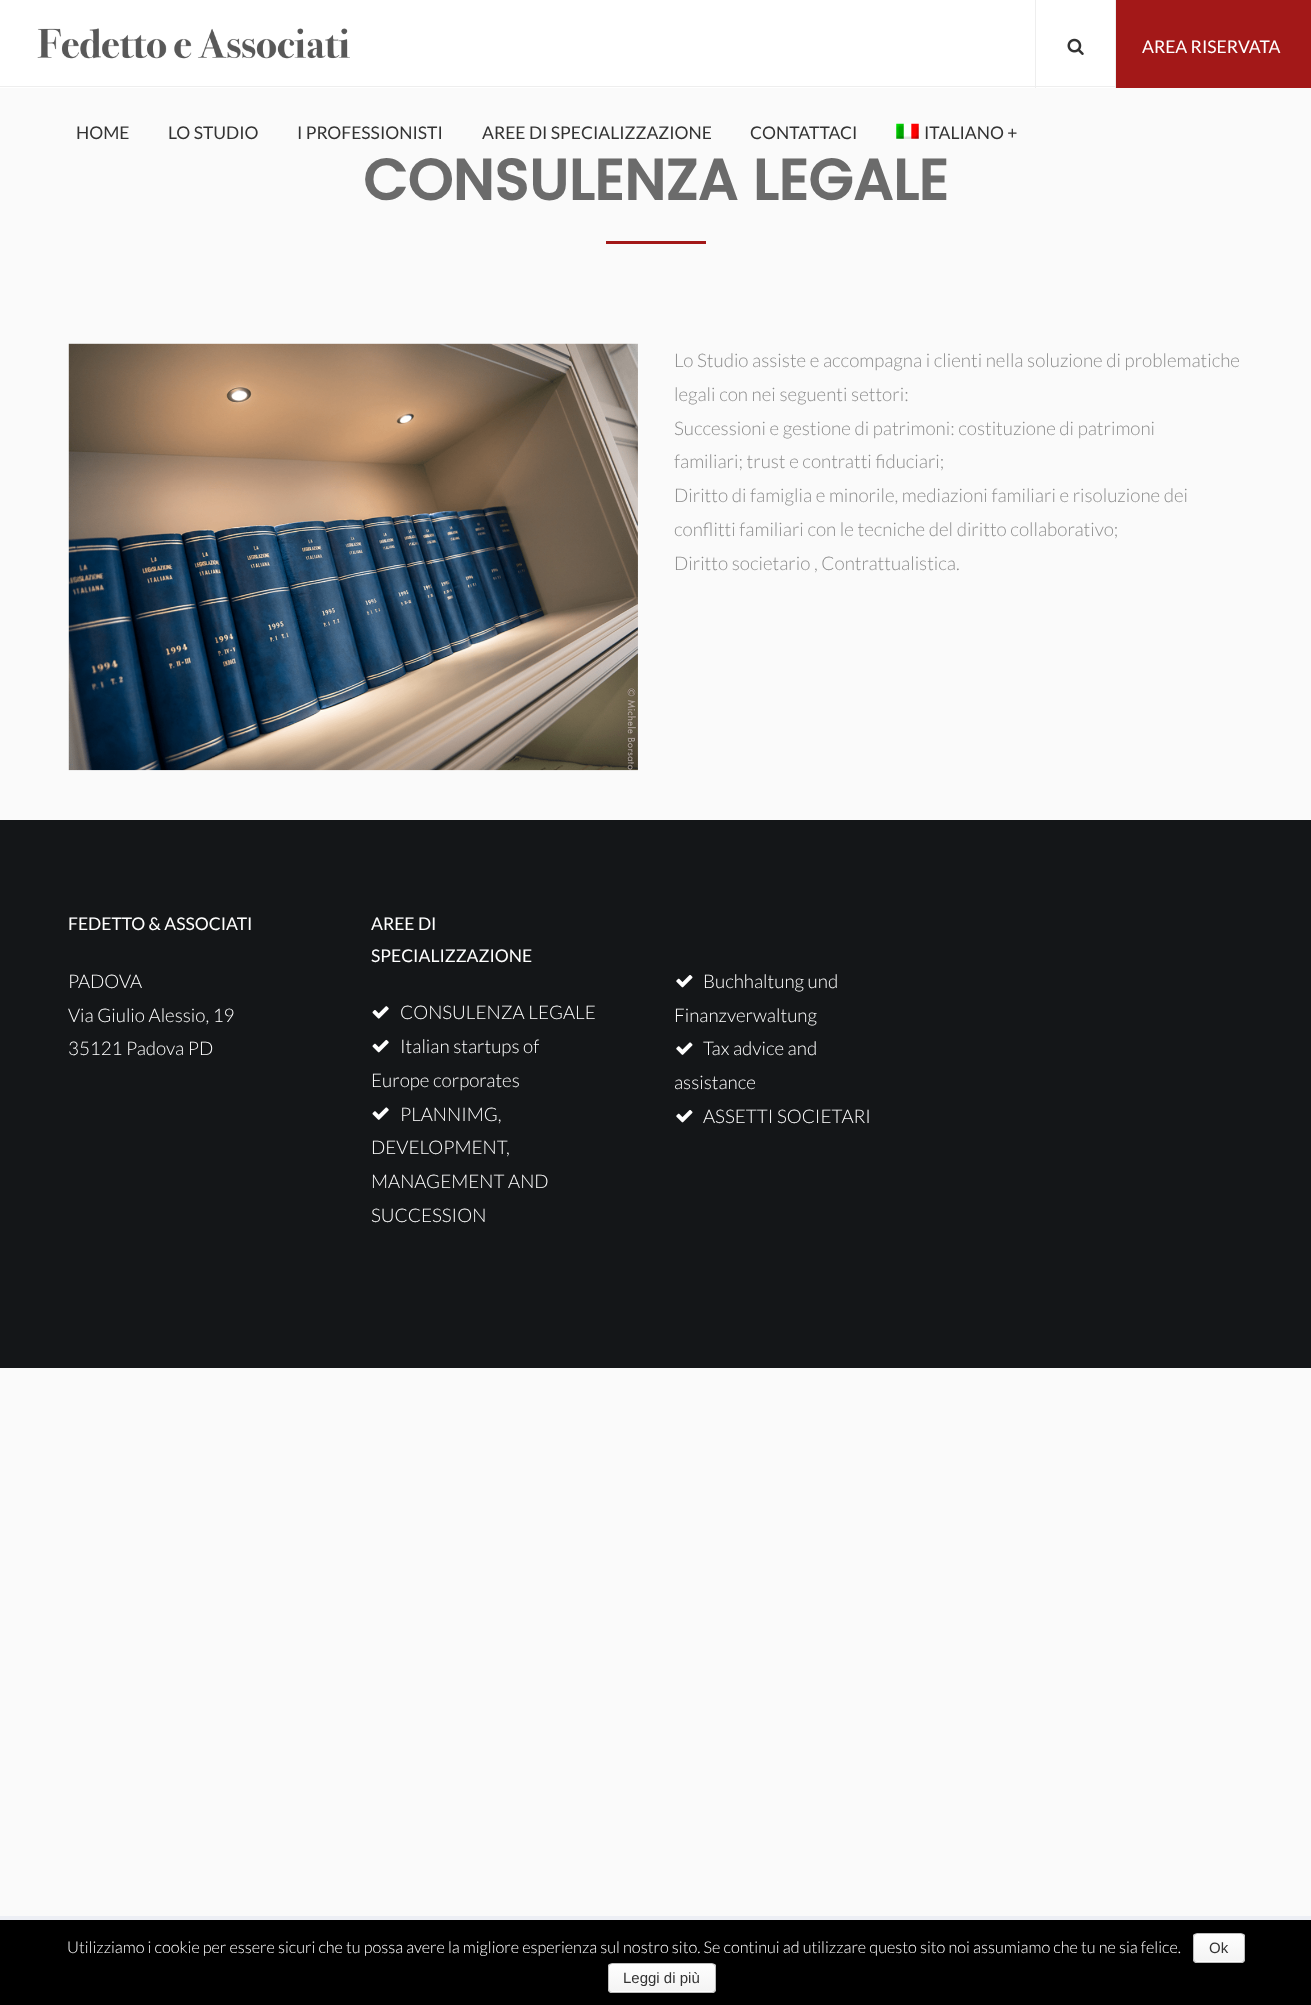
<svg xmlns="http://www.w3.org/2000/svg" width="1311" height="2005" viewBox="0 0 1311 2005">
  <defs>
    <clipPath id="clip1"><rect x="1193" y="1933" width="52" height="30" rx="4"/></clipPath>
    <linearGradient id="g1" gradientUnits="userSpaceOnUse" x1="1219" y1="1934" x2="1219" y2="1961"><stop offset="0" stop-color="rgb(254,254,254)"/><stop offset="1" stop-color="rgb(244,244,244)"/></linearGradient>
    <linearGradient id="g2" gradientUnits="userSpaceOnUse" x1="1219" y1="1961" x2="1219" y2="1989"><stop offset="0" stop-color="rgb(254,254,254)"/><stop offset="1" stop-color="rgb(244,244,244)"/></linearGradient>
    <clipPath id="clip2"><rect x="608" y="1963" width="108" height="30" rx="4"/></clipPath>
    <linearGradient id="g3" gradientUnits="userSpaceOnUse" x1="662" y1="1964" x2="662" y2="1991"><stop offset="0" stop-color="rgb(254,254,254)"/><stop offset="1" stop-color="rgb(244,244,244)"/></linearGradient>
    <linearGradient id="g4" gradientUnits="userSpaceOnUse" x1="662" y1="1991" x2="662" y2="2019"><stop offset="0" stop-color="rgb(254,254,254)"/><stop offset="1" stop-color="rgb(244,244,244)"/></linearGradient>
  </defs>
  <rect width="100%" height="100%" fill="rgb(250,250,250)"/>
  <rect x="0" y="0" width="1115" height="88" fill="rgb(255,255,255)"/>
  <rect x="0" y="86" width="1115" height="1" fill="rgb(238,238,238)"/>
  <image x="37" y="28" width="313" height="31" href="pic1.png"/>
  <rect x="1035" y="0" width="1" height="88" fill="rgb(238,238,238)"/>
  <image x="1067" y="38" width="17" height="17" href="pic2.png"/>
  <rect x="1115" y="0" width="1" height="88" fill="rgb(238,238,238)"/>
  <rect x="1116" y="0" width="195" height="88" fill="rgb(163,24,24)"/>
  <text x="1142" y="53" font-family="Lato" font-size="17.5" fill="rgb(255,255,255)">AREA RISERVATA</text>
  <g font-family="Lato" font-size="17.5" fill="rgb(51,51,51)">
    <text x="76" y="139">HOME</text>
    <text x="168" y="139">LO STUDIO</text>
    <text x="297" y="139">I PROFESSIONISTI</text>
    <text x="482" y="139">AREE DI SPECIALIZZAZIONE</text>
    <text x="750" y="139">CONTATTACI</text>
  </g>
  <image x="896" y="123" width="23" height="16" href="pic3.png"/>
  <text x="924" y="139" font-family="Lato" font-size="17.5" fill="rgb(51,51,51)">ITALIANO +</text>
  <text x="363" y="200" font-family="Poppins" font-size="57.5" font-weight="bold" fill="rgb(107,107,107)">CONSULENZA LEGALE</text>
  <rect x="606" y="241" width="100" height="3" fill="rgb(163,24,24)"/>
  <image x="68" y="343" width="570" height="428" href="pic4.png"/>
  <g font-family="Lato" font-size="18.75" font-weight="300" fill="rgb(140,140,140)">
    <text>
      <tspan x="674" y="367">Lo Studio assiste e accompagna i clienti nella soluzione di problematiche</tspan>
      <tspan x="674" y="401">legali con nei seguenti settori:</tspan>
      <tspan x="674" y="435">Successioni e gestione di patrimoni: costituzione di patrimoni</tspan>
      <tspan x="674" y="468">familiari; trust e contratti fiduciari;</tspan>
      <tspan x="674" y="502">Diritto di famiglia e minorile, mediazioni familiari e risoluzione dei</tspan>
      <tspan x="674" y="536">conflitti familiari con le tecniche del diritto collaborativo;</tspan>
      <tspan x="674" y="570">Diritto societario , Contrattualistica.</tspan>
    </text>
  </g>
  <rect x="0" y="820" width="1311" height="548" fill="rgb(20,22,24)"/>
  <text x="68" y="930" font-family="Lato" font-size="17.5" fill="rgb(255,255,255)">FEDETTO &amp; ASSOCIATI</text>
  <g font-family="Lato" font-size="18.75" font-weight="300" fill="rgb(255,255,255)">
    <text>
      <tspan x="68" y="988">PADOVA</tspan>
      <tspan x="68" y="1022">Via Giulio Alessio, 19</tspan>
      <tspan x="68" y="1055">35121 Padova PD</tspan>
    </text>
  </g>
  <g font-family="Lato" font-size="17.5" fill="rgb(255,255,255)">
    <text>
      <tspan x="371" y="930">AREE DI</tspan>
      <tspan x="371" y="962">SPECIALIZZAZIONE</tspan>
    </text>
  </g>
  <image x="372" y="1006" width="17" height="13" href="pic5.png"/>
  <text x="400" y="1019" font-family="Lato" font-size="18.75" font-weight="300" fill="rgb(255,255,255)">CONSULENZA LEGALE</text>
  <image x="372" y="1039" width="17" height="14" href="pic6.png"/>
  <g font-family="Lato" font-size="18.75" font-weight="300" fill="rgb(255,255,255)">
    <text x="400" y="1053">Italian startups of</text>
    <text x="371" y="1087">Europe corporates</text>
  </g>
  <image x="372" y="1107" width="17" height="13" href="pic7.png"/>
  <g font-family="Lato" font-size="18.75" font-weight="300" fill="rgb(255,255,255)">
    <text x="400" y="1121">PLANNIMG,</text>
    <text>
      <tspan x="371" y="1154">DEVELOPMENT,</tspan>
      <tspan x="371" y="1188">MANAGEMENT AND</tspan>
      <tspan x="371" y="1222">SUCCESSION</tspan>
    </text>
  </g>
  <image x="676" y="975" width="17" height="13" href="pic8.png"/>
  <g font-family="Lato" font-size="18.75" font-weight="300" fill="rgb(255,255,255)">
    <text x="703" y="988">Buchhaltung und</text>
    <text x="674" y="1022">Finanzverwaltung</text>
  </g>
  <image x="676" y="1042" width="17" height="13" href="pic9.png"/>
  <g font-family="Lato" font-size="18.75" font-weight="300" fill="rgb(255,255,255)">
    <text x="703" y="1055">Tax advice and</text>
    <text x="674" y="1089">assistance</text>
  </g>
  <image x="676" y="1110" width="17" height="13" href="pic8.png"/>
  <text x="703" y="1123" font-family="Lato" font-size="18.75" font-weight="300" fill="rgb(255,255,255)">ASSETTI SOCIETARI</text>
  <rect x="0" y="1920" width="1311" height="85" fill="rgb(0,0,0)"/>
  <text x="67" y="1953" font-family="Lato" font-size="16.25" font-weight="300" fill="rgb(255,255,255)">Utilizziamo i cookie per essere sicuri che tu possa avere la migliore esperienza sul nostro sito. Se continui ad utilizzare questo sito noi assumiamo che tu ne sia felice.</text>
  <g clip-path="url(#clip1)">
    <rect x="1193" y="1934" width="52" height="27" fill="url(#g1)"/>
    <rect x="1193" y="1961" width="52" height="2" fill="url(#g2)"/>
  </g>
  <rect x="1193.5" y="1933.5" width="51" height="29" rx="3.5" fill="none" stroke="rgb(187,187,187)"/>
  <text x="1209" y="1953" font-family="Liberation Sans" font-size="15" fill="rgb(51,51,51)">Ok</text>
  <g clip-path="url(#clip2)">
    <rect x="608" y="1964" width="108" height="27" fill="url(#g3)"/>
    <rect x="608" y="1991" width="108" height="2" fill="url(#g4)"/>
  </g>
  <rect x="608.5" y="1963.5" width="107" height="29" rx="3.5" fill="none" stroke="rgb(187,187,187)"/>
  <text x="623" y="1983" font-family="Liberation Sans" font-size="15" fill="rgb(51,51,51)">Leggi di più</text>
  <rect x="0" y="1916" width="1311" height="4" fill="rgb(237,239,245)"/>
</svg>
